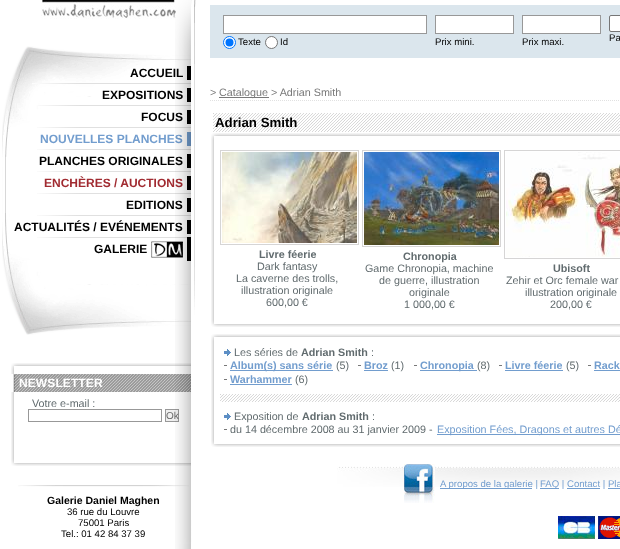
<svg xmlns="http://www.w3.org/2000/svg" width="620" height="549" viewBox="0 0 620 549">
  <rect width="100%" height="100%" fill="rgb(255,255,255)"/>
  <image x="41" y="0" width="135" height="19" href="pic1.png"/>
  <image x="2" y="46" width="191" height="289" href="pic2.png"/>
  <image x="32" y="83" width="159" height="1" href="pic3.png"/>
  <text x="130" y="77" font-family="Liberation Sans" font-size="12" font-weight="bold" fill="rgb(0,0,0)">ACCUEIL</text>
  <rect x="187" y="66" width="4" height="14" fill="rgb(0,0,0)"/>
  <image x="38" y="105" width="153" height="1" href="pic4.png"/>
  <text x="102" y="99" font-family="Liberation Sans" font-size="12" font-weight="bold" fill="rgb(0,0,0)">EXPOSITIONS</text>
  <rect x="187" y="88" width="4" height="14" fill="rgb(0,0,0)"/>
  <image x="37" y="127" width="154" height="1" href="pic5.png"/>
  <text x="141" y="121" font-family="Liberation Sans" font-size="12" font-weight="bold" fill="rgb(0,0,0)">FOCUS</text>
  <rect x="187" y="110" width="4" height="14" fill="rgb(0,0,0)"/>
  <image x="37" y="149" width="154" height="1" href="pic5.png"/>
  <text x="40" y="143" font-family="Liberation Sans" font-size="12" font-weight="bold" fill="rgb(114,157,206)">NOUVELLES PLANCHES</text>
  <rect x="187" y="132" width="4" height="14" fill="rgb(114,157,206)"/>
  <image x="37" y="171" width="154" height="1" href="pic5.png"/>
  <text x="39" y="165" font-family="Liberation Sans" font-size="12" font-weight="bold" fill="rgb(0,0,0)">PLANCHES ORIGINALES</text>
  <rect x="187" y="154" width="4" height="14" fill="rgb(0,0,0)"/>
  <image x="37" y="193" width="154" height="1" href="pic5.png"/>
  <text x="44" y="187" font-family="Liberation Sans" font-size="12" font-weight="bold" fill="rgb(161,43,49)">ENCHÈRES / AUCTIONS</text>
  <rect x="187" y="176" width="4" height="14" fill="rgb(0,0,0)"/>
  <image x="37" y="215" width="154" height="1" href="pic5.png"/>
  <text x="126" y="209" font-family="Liberation Sans" font-size="12" font-weight="bold" fill="rgb(0,0,0)">EDITIONS</text>
  <rect x="187" y="198" width="4" height="14" fill="rgb(0,0,0)"/>
  <image x="37" y="237" width="150" height="1" href="pic6.png"/>
  <text x="14" y="231" font-family="Liberation Sans" font-size="12" font-weight="bold" fill="rgb(0,0,0)">ACTUALITÉS / EVÉNEMENTS</text>
  <rect x="187" y="220" width="4" height="14" fill="rgb(0,0,0)"/>
  <text x="94" y="253" font-family="Liberation Sans" font-size="12" font-weight="bold" fill="rgb(0,0,0)">GALERIE</text>
  <rect x="187" y="237" width="4" height="24" fill="rgb(0,0,0)"/>
  <image x="151" y="241" width="32" height="17" href="pic7.png"/>
  <image x="11" y="363" width="180" height="11" href="pic8.png"/>
  <image x="13" y="374" width="178" height="18" href="pic9.png"/>
  <text x="19" y="387" font-family="Liberation Sans" font-size="12" font-weight="bold" letter-spacing="0.1" fill="rgb(255,255,255)">NEWSLETTER</text>
  <image x="11" y="392" width="180" height="74" href="pic10.png"/>
  <text x="32" y="407" font-family="Liberation Sans" font-size="10.75" fill="rgb(97,107,110)">Votre e-mail :</text>
  <rect x="28.5" y="409.5" width="133" height="12" fill="none" stroke="rgb(152,152,152)"/>
  <rect x="165.5" y="409.5" width="13" height="12" fill="rgb(239,239,239)" stroke="rgb(152,152,152)"/>
  <text x="166" y="419" font-family="Liberation Sans" font-size="10" fill="rgb(105,105,105)">Ok</text>
  <image x="18" y="485" width="171" height="2" href="pic11.png"/>
  <text x="47" y="504" font-family="Liberation Sans" font-size="10.5" font-weight="bold" fill="rgb(0,0,0)">Galerie Daniel Maghen</text>
  <g font-family="Liberation Sans" font-size="9.6" fill="rgb(0,0,0)">
    <text x="67" y="515">36 rue du Louvre</text>
    <text x="78" y="526">75001 Paris</text>
    <text x="61" y="537">Tel.: 01 42 84 37 39</text>
  </g>
  <image x="175" y="0" width="32" height="64" href="pic12.png"/>
  <rect x="210" y="5" width="410" height="53" fill="rgb(219,230,237)"/>
  <rect x="223.5" y="15.5" width="203" height="18" fill="rgb(255,255,255)" stroke="rgb(152,152,152)"/>
  <circle cx="229.5" cy="42.5" r="6" fill="rgb(255,255,255)" stroke="rgb(0,117,255)"/>
  <circle cx="229.5" cy="42.5" r="4" fill="rgb(0,117,255)"/>
  <text x="238" y="45" font-family="Liberation Sans" font-size="9.6" fill="rgb(0,0,0)">Texte</text>
  <circle cx="271.5" cy="42.5" r="6" fill="rgb(255,255,255)" stroke="rgb(118,118,118)"/>
  <text x="280" y="45" font-family="Liberation Sans" font-size="9.6" fill="rgb(0,0,0)">Id</text>
  <rect x="435.5" y="15.5" width="78" height="18" fill="rgb(255,255,255)" stroke="rgb(152,152,152)"/>
  <text x="435" y="45" font-family="Liberation Sans" font-size="9.6" fill="rgb(0,0,0)">Prix mini.</text>
  <rect x="522.5" y="15.5" width="78" height="18" fill="rgb(255,255,255)" stroke="rgb(152,152,152)"/>
  <text x="522" y="45" font-family="Liberation Sans" font-size="9.6" fill="rgb(0,0,0)">Prix maxi.</text>
  <rect x="609.5" y="15.5" width="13" height="16" rx="1.5" fill="rgb(255,255,255)" stroke="rgb(118,118,118)"/>
  <text x="609" y="41" font-family="Liberation Sans" font-size="9.6" fill="rgb(0,0,0)">Pa</text>
  <image x="175" y="64" width="32" height="485" href="pic13.png"/>
  <path d="M210 100.5H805" fill="none" stroke="rgb(225,225,225)" stroke-dasharray="1 1"/>
  <text x="210" y="96" font-family="Liberation Sans" font-size="10.75" fill="rgb(120,120,120)">&gt;</text>
  <rect x="219" y="97" width="50" height="1" fill="rgb(120,120,120)"/>
  <text x="219" y="96" font-family="Liberation Sans" font-size="10.75" fill="rgb(120,120,120)">Catalogue &gt; Adrian Smith</text>
  <image x="213" y="113" width="407" height="19" href="pic14.png"/>
  <text x="215" y="127" font-family="Liberation Sans" font-size="13.25" font-weight="bold" fill="rgb(0,0,0)">Adrian Smith</text>
  <image x="211" y="133" width="409" height="25" href="pic15.png"/>
  <image x="211" y="158" width="409" height="169" href="pic16.png"/>
  <rect x="220.5" y="150.5" width="138" height="94" fill="none" stroke="rgb(214,213,213)"/>
  <image x="222" y="152" width="135" height="91" href="pic17.png"/>
  <text x="259" y="258" font-family="Liberation Sans" font-size="10.75" font-weight="bold" fill="rgb(97,107,110)">Livre féerie</text>
  <g font-family="Liberation Sans" font-size="10.75" fill="rgb(97,107,110)">
    <text x="257" y="270">Dark fantasy</text>
    <text x="236" y="282">La caverne des trolls,</text>
    <text x="241" y="294">illustration originale</text>
    <text x="266" y="306">600,00 €</text>
  </g>
  <rect x="362.5" y="150.5" width="138" height="96" fill="none" stroke="rgb(214,213,213)"/>
  <image x="364" y="152" width="135" height="93" href="pic18.png"/>
  <text x="403" y="260" font-family="Liberation Sans" font-size="10.75" font-weight="bold" fill="rgb(97,107,110)">Chronopia</text>
  <g font-family="Liberation Sans" font-size="10.75" fill="rgb(97,107,110)">
    <text x="365" y="272">Game Chronopia, machine</text>
    <text x="379" y="284">de guerre, illustration</text>
    <text x="409" y="296">originale</text>
    <text x="404" y="308">1 000,00 €</text>
  </g>
  <rect x="504.5" y="150.5" width="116" height="108" fill="none" stroke="rgb(214,213,213)"/>
  <image x="506" y="152" width="114" height="105" href="pic19.png"/>
  <text x="553" y="272" font-family="Liberation Sans" font-size="10.75" font-weight="bold" fill="rgb(97,107,110)">Ubisoft</text>
  <g font-family="Liberation Sans" font-size="10.75" fill="rgb(97,107,110)">
    <text x="506" y="284">Zehir et Orc female war</text>
    <text x="525" y="296">illustration originale</text>
    <text x="550" y="308">200,00 €</text>
  </g>
  <image x="211" y="334" width="409" height="25" href="pic15.png"/>
  <image x="211" y="359" width="409" height="88" href="pic20.png"/>
  <image x="224" y="349" width="7" height="7" href="pic21.png"/>
  <text x="234" y="356" font-family="Liberation Sans" font-size="10.75" fill="rgb(97,107,110)">Les séries de</text>
  <text x="301" y="356" font-family="Liberation Sans" font-size="10.75" font-weight="bold" fill="rgb(97,107,110)">Adrian Smith</text>
  <text x="371" y="356" font-family="Liberation Sans" font-size="10.75" fill="rgb(97,107,110)">:</text>
  <rect x="230" y="370" width="103" height="1" fill="rgb(114,157,206)"/>
  <text x="230" y="369" font-family="Liberation Sans" font-size="10.75" font-weight="bold" fill="rgb(114,157,206)">Album(s) sans série</text>
  <rect x="224" y="365" width="3" height="1" fill="rgb(120,120,120)"/>
  <text x="336" y="369" font-family="Liberation Sans" font-size="10.75" fill="rgb(97,107,110)">(5)</text>
  <text x="364" y="369" font-family="Liberation Sans" font-size="10.75" font-weight="bold" fill="rgb(114,157,206)">Broz</text>
  <rect x="358" y="365" width="3" height="1" fill="rgb(120,120,120)"/>
  <rect x="364" y="370" width="24" height="1" fill="rgb(114,157,206)"/>
  <text x="391" y="369" font-family="Liberation Sans" font-size="10.75" fill="rgb(97,107,110)">(1)</text>
  <rect x="420" y="370" width="57" height="1" fill="rgb(114,157,206)"/>
  <text x="420" y="369" font-family="Liberation Sans" font-size="10.75" font-weight="bold" fill="rgb(114,157,206)">Chronopia</text>
  <rect x="414" y="365" width="3" height="1" fill="rgb(120,120,120)"/>
  <text x="477" y="369" font-family="Liberation Sans" font-size="10.75" fill="rgb(97,107,110)">(8)</text>
  <text x="505" y="369" font-family="Liberation Sans" font-size="10.75" font-weight="bold" fill="rgb(114,157,206)">Livre féerie</text>
  <rect x="499" y="365" width="3" height="1" fill="rgb(120,120,120)"/>
  <rect x="505" y="370" width="58" height="1" fill="rgb(114,157,206)"/>
  <text x="566" y="369" font-family="Liberation Sans" font-size="10.75" fill="rgb(97,107,110)">(5)</text>
  <text x="594" y="369" font-family="Liberation Sans" font-size="10.75" font-weight="bold" fill="rgb(114,157,206)">Rack</text>
  <rect x="588" y="365" width="3" height="1" fill="rgb(120,120,120)"/>
  <rect x="594" y="370" width="26" height="1" fill="rgb(114,157,206)"/>
  <text x="230" y="383" font-family="Liberation Sans" font-size="10.75" font-weight="bold" fill="rgb(114,157,206)">Warhammer</text>
  <rect x="224" y="379" width="3" height="1" fill="rgb(120,120,120)"/>
  <rect x="230" y="384" width="62" height="1" fill="rgb(114,157,206)"/>
  <text x="295" y="383" font-family="Liberation Sans" font-size="10.75" fill="rgb(97,107,110)">(6)</text>
  <image x="220" y="394" width="400" height="8" href="pic22.png"/>
  <image x="224" y="413" width="7" height="7" href="pic21.png"/>
  <text x="234" y="420" font-family="Liberation Sans" font-size="10.75" fill="rgb(97,107,110)">Exposition de</text>
  <text x="302" y="420" font-family="Liberation Sans" font-size="10.75" font-weight="bold" fill="rgb(97,107,110)">Adrian Smith</text>
  <g font-family="Liberation Sans" font-size="10.75" fill="rgb(97,107,110)">
    <text x="372" y="420">:</text>
    <text x="230" y="433">du 14 décembre 2008 au 31 janvier 2009 -</text>
  </g>
  <rect x="224" y="429" width="3" height="1" fill="rgb(120,120,120)"/>
  <rect x="437" y="434" width="183" height="1" fill="rgb(114,157,206)"/>
  <text x="437" y="433" font-family="Liberation Sans" font-size="10.75" fill="rgb(114,157,206)">Exposition Fées, Dragons et autres Dé</text>
  <image x="337" y="466" width="283" height="21" href="pic23.png"/>
  <image x="404" y="464" width="31" height="39" href="pic24.png"/>
  <rect x="440" y="488" width="92" height="1" fill="rgb(114,157,206)"/>
  <text x="440" y="487" font-family="Liberation Sans" font-size="9.6" fill="rgb(114,157,206)">A propos de la galerie |</text>
  <rect x="540" y="488" width="19" height="1" fill="rgb(114,157,206)"/>
  <text x="540" y="487" font-family="Liberation Sans" font-size="9.6" fill="rgb(114,157,206)">FAQ | Contact | Pla</text>
  <rect x="567" y="488" width="33" height="1" fill="rgb(114,157,206)"/>
  <rect x="608" y="488" width="12" height="1" fill="rgb(114,157,206)"/>
  <image x="558" y="516" width="62" height="23" href="pic25.png"/>
</svg>
